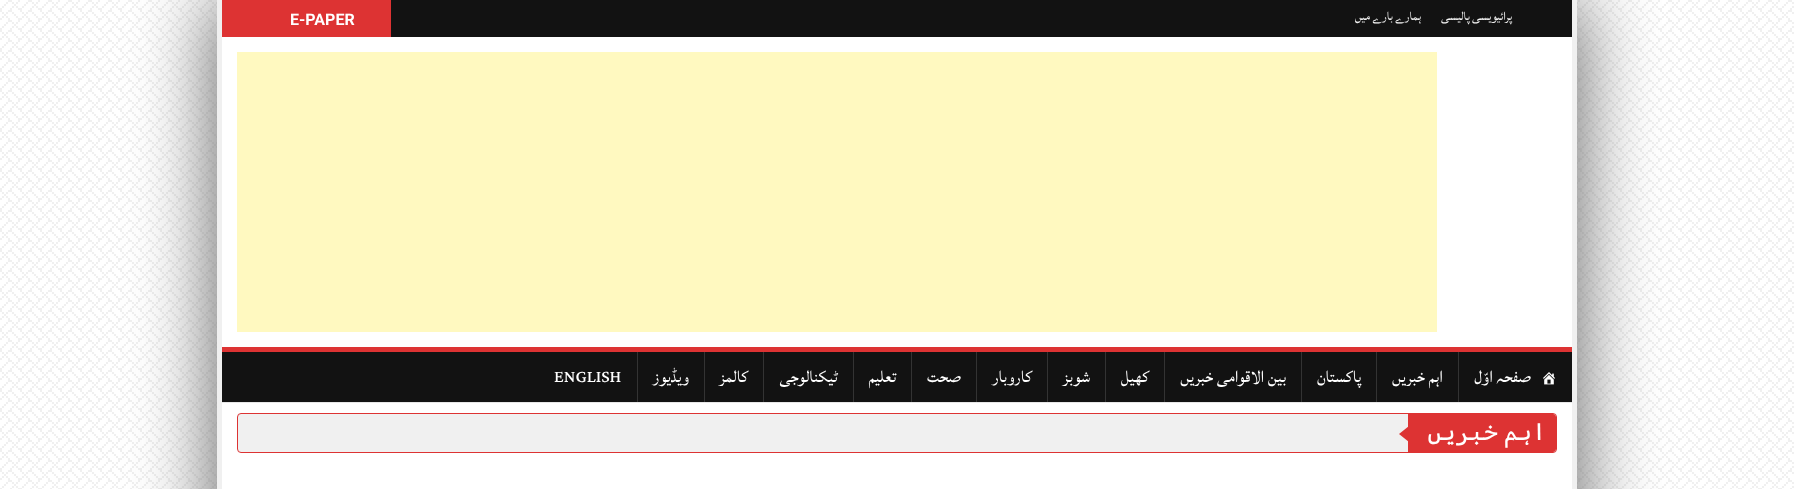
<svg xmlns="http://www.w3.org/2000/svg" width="1794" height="489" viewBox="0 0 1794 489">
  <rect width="100%" height="100%" fill="rgb(255,255,255)"/>
  <image x="0" y="0" width="1794" height="489" href="pic1.png"/>
  <rect x="215" y="-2" width="1364" height="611" fill="rgb(102,102,102)" filter="blur(40px)"/>
  <rect x="222" y="37" width="1350" height="452" fill="rgb(255,255,255)"/>
  <rect x="1572" y="0" width="5" height="489" fill="rgb(240,240,240)"/>
  <rect x="217" y="0" width="5" height="489" fill="rgb(240,240,240)"/>
  <rect x="391" y="0" width="1181" height="37" fill="rgb(18,18,18)"/>
  <g font-family="Lateef" font-size="16" direction="rtl" fill="rgb(240,240,240)">
    <text x="1512" y="20">پرائیویسی پالیسی</text>
    <text x="1421" y="20">ہمارے بارے میں</text>
  </g>
  <rect x="222" y="0" width="169" height="37" fill="rgb(221,51,51)"/>
  <text x="290" y="25" font-family="Roboto" font-size="16" font-weight="bold" fill="rgb(255,255,255)">E-PAPER</text>
  <rect x="237" y="52" width="1200" height="280" fill="rgb(255,249,192)"/>
  <rect x="222" y="352" width="1350" height="50" fill="rgb(18,18,18)"/>
  <rect x="222" y="347" width="1350" height="5" fill="rgb(221,51,51)"/>
  <rect x="222" y="402" width="1350" height="1" fill="rgb(231,231,231)"/>
  <rect x="1458" y="352" width="1" height="50" fill="rgb(51,51,51)"/>
  <image x="1543" y="372" width="12" height="13" href="pic2.png"/>
  <text x="1531" y="382" font-family="Lateef" font-size="22" direction="rtl" fill="rgb(255,255,255)">صفحہ اوّل</text>
  <rect x="1376" y="352" width="1" height="50" fill="rgb(51,51,51)"/>
  <text x="1443" y="382" font-family="Lateef" font-size="22" direction="rtl" fill="rgb(255,255,255)">اہم خبریں</text>
  <rect x="1301" y="352" width="1" height="50" fill="rgb(51,51,51)"/>
  <text x="1361" y="382" font-family="Lateef" font-size="22" direction="rtl" fill="rgb(255,255,255)">پاکستان</text>
  <rect x="1164" y="352" width="1" height="50" fill="rgb(51,51,51)"/>
  <text x="1286" y="382" font-family="Lateef" font-size="22" direction="rtl" fill="rgb(255,255,255)">بین الاقوامی خبریں</text>
  <rect x="1105" y="352" width="1" height="50" fill="rgb(51,51,51)"/>
  <text x="1149" y="382" font-family="Lateef" font-size="22" direction="rtl" fill="rgb(255,255,255)">کھیل</text>
  <rect x="1047" y="352" width="1" height="50" fill="rgb(51,51,51)"/>
  <text x="1090" y="382" font-family="Lateef" font-size="22" direction="rtl" fill="rgb(255,255,255)">شوبز</text>
  <rect x="976" y="352" width="1" height="50" fill="rgb(51,51,51)"/>
  <text x="1032" y="382" font-family="Lateef" font-size="22" direction="rtl" fill="rgb(255,255,255)">کاروبار</text>
  <rect x="911" y="352" width="1" height="50" fill="rgb(51,51,51)"/>
  <text x="961" y="382" font-family="Lateef" font-size="22" direction="rtl" fill="rgb(255,255,255)">صحت</text>
  <rect x="853" y="352" width="1" height="50" fill="rgb(51,51,51)"/>
  <text x="896" y="382" font-family="Lateef" font-size="22" direction="rtl" fill="rgb(255,255,255)">تعلیم</text>
  <rect x="763" y="352" width="1" height="50" fill="rgb(51,51,51)"/>
  <text x="838" y="382" font-family="Lateef" font-size="22" direction="rtl" fill="rgb(255,255,255)">ٹیکنالوجی</text>
  <rect x="704" y="352" width="1" height="50" fill="rgb(51,51,51)"/>
  <text x="748" y="382" font-family="Lateef" font-size="22" direction="rtl" fill="rgb(255,255,255)">کالمز</text>
  <rect x="637" y="352" width="1" height="50" fill="rgb(51,51,51)"/>
  <text x="689" y="382" font-family="Lateef" font-size="22" direction="rtl" fill="rgb(255,255,255)">ویڈیوز</text>
  <text x="554" y="382" font-family="Lateef" font-size="22" fill="rgb(255,255,255)">ENGLISH</text>
  <rect x="237.5" y="413.5" width="1319" height="39" rx="3.5" fill="rgb(240,240,240)" stroke="rgb(221,51,51)"/>
  <path d="M1408 414H1553C1554.5 414 1556 415.5 1556 417V449C1556 450.5 1554.5 452 1553 452H1408Z" fill="rgb(221,51,51)"/>
  <text x="1546" y="440" word-spacing="-8" font-family="Cascadia Code" font-size="24" direction="rtl" fill="rgb(255,255,255)">اہم خبریں</text>
  <path d="M1409 426V442L1399 434Z" fill="rgb(221,51,51)"/>
</svg>
